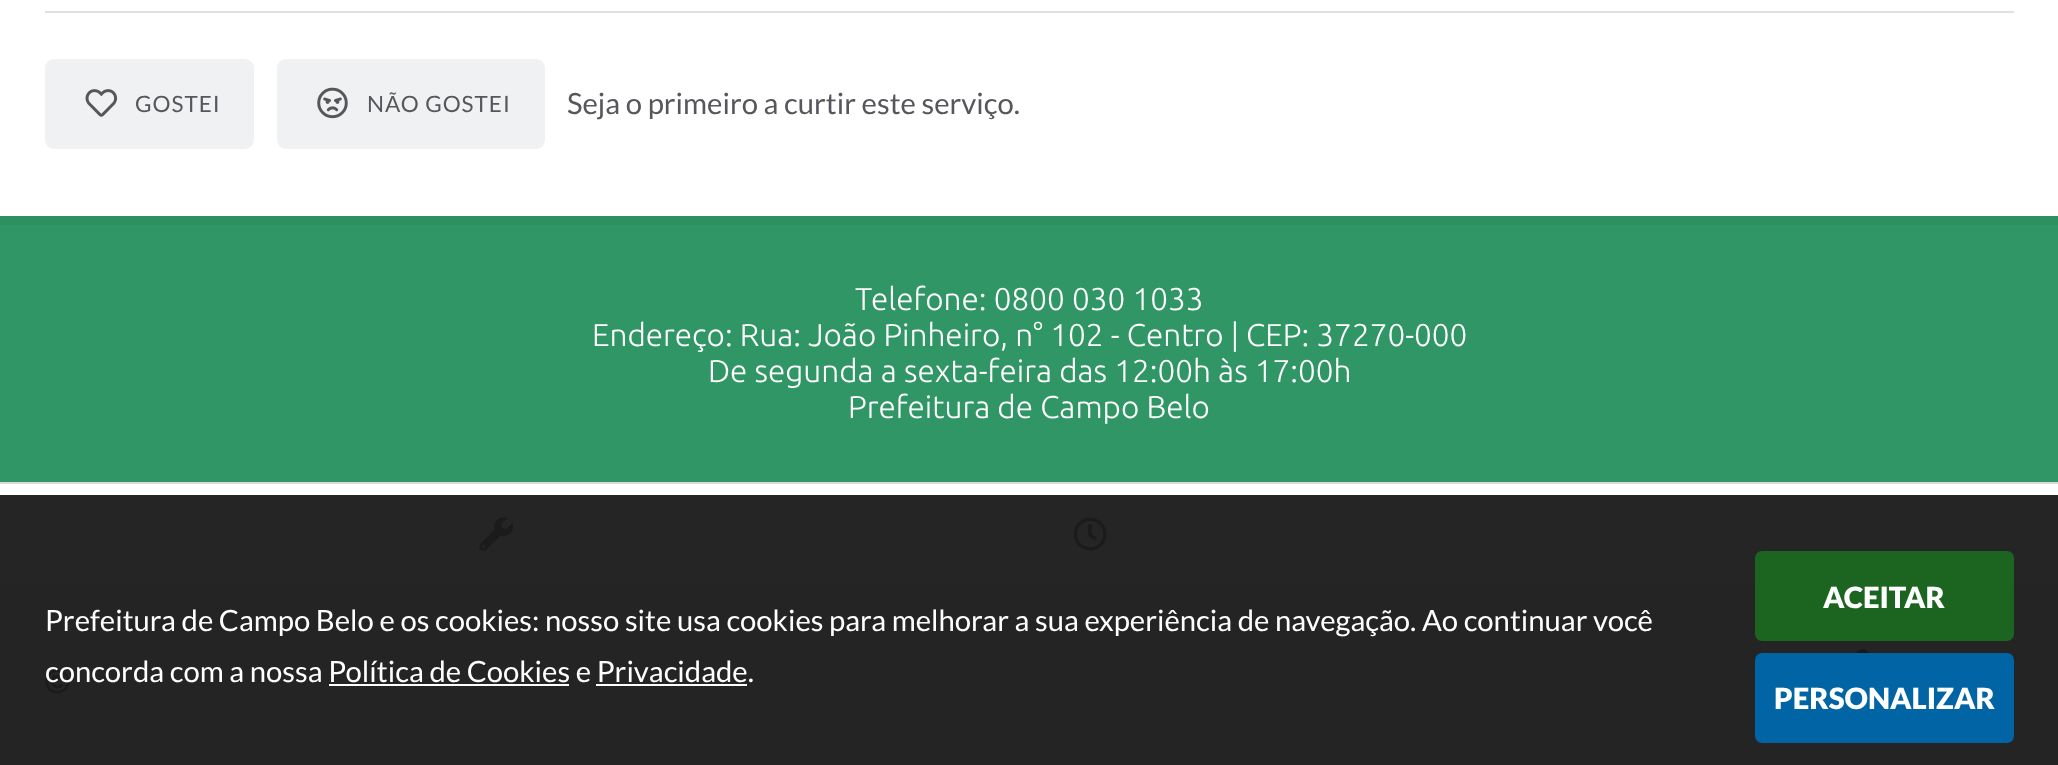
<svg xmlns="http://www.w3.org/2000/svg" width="2058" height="765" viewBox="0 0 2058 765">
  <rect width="100%" height="100%" fill="rgb(255,255,255)"/>
  <rect x="0" y="495" width="2058" height="90" fill="rgb(37,37,37)"/>
  <rect x="45" y="11" width="1969" height="2" fill="rgb(223,225,228)"/>
  <rect x="45" y="59" width="209" height="90" rx="9" fill="rgb(240,241,242)"/>
  <image x="85" y="89" width="33" height="28" href="pic1.png"/>
  <text x="135" y="112" font-family="Lato" font-size="22.5" letter-spacing="1" fill="rgb(86,86,91)">GOSTEI</text>
  <rect x="277" y="59" width="268" height="90" rx="9" fill="rgb(240,241,242)"/>
  <image x="317" y="87" width="31" height="32" href="pic2.png"/>
  <text x="367" y="112" font-family="Lato" font-size="22.5" letter-spacing="1" fill="rgb(86,86,91)">NÃO GOSTEI</text>
  <text x="567" y="114" font-family="Lato" font-size="29.25" fill="rgb(86,86,91)">Seja o primeiro a curtir este serviço.</text>
  <rect x="0" y="225" width="2058" height="257" fill="rgb(49,150,102)"/>
  <rect x="0" y="216" width="2058" height="9" fill="rgb(45,144,96)"/>
  <g font-family="Ubuntu" font-size="31.5" font-weight="300" fill="rgb(255,255,255)">
    <text x="855" y="310">Telefone: 0800 030 1033</text>
    <text x="592" y="346">Endereço: Rua: João Pinheiro, n° 102 - Centro | CEP: 37270-000</text>
    <text x="708" y="382">De segunda a sexta-feira das 12:00h às 17:00h</text>
    <text x="848" y="418">Prefeitura de Campo Belo</text>
  </g>
  <rect x="0" y="482" width="2058" height="2" fill="rgb(217,217,217)"/>
  <rect x="0" y="585" width="2058" height="2" fill="rgb(35,35,35)"/>
  <image x="479" y="517" width="35" height="34" href="pic3.png"/>
  <image x="1073" y="517" width="34" height="34" href="pic4.png"/>
  <rect x="0" y="587" width="2058" height="178" fill="rgb(36,36,36)"/>
  <image x="1856" y="649" width="13" height="4" href="pic5.png"/>
  <image x="45" y="669" width="25" height="25" href="pic6.png"/>
  <g font-family="Lato" font-size="29.25" fill="rgb(255,255,255)">
    <text>
      <tspan x="45" y="631">Prefeitura de Campo Belo e os cookies: nosso site usa cookies para melhorar a sua experiência de navegação. Ao continuar você</tspan>
      <tspan x="45" y="682">concorda com a nossa Política de Cookies e Privacidade.</tspan>
    </text>
  </g>
  <rect x="329" y="684" width="240" height="2" fill="rgb(255,255,255)"/>
  <rect x="596" y="684" width="151" height="2" fill="rgb(255,255,255)"/>
  <rect x="1755" y="551" width="259" height="90" rx="7" fill="rgb(27,101,32)"/>
  <text x="1823" y="608" font-family="Lato" font-size="29.25" font-weight="900" fill="rgb(255,255,255)">ACEITAR</text>
  <rect x="1755" y="653" width="259" height="90" rx="7" fill="rgb(1,100,164)"/>
  <text x="1774" y="709" font-family="Lato" font-size="29.25" font-weight="900" fill="rgb(255,255,255)">PERSONALIZAR</text>
</svg>
